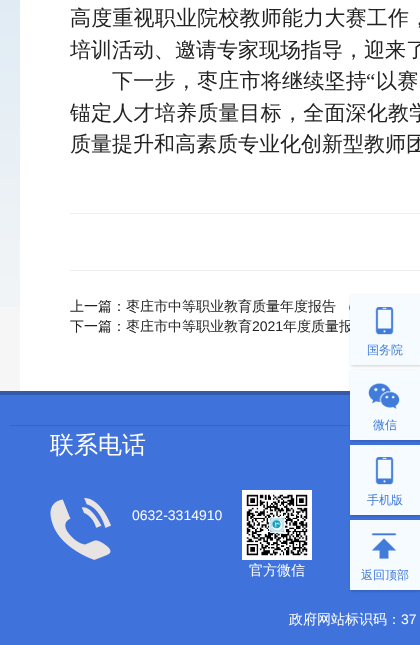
<svg xmlns="http://www.w3.org/2000/svg" width="420" height="645" viewBox="0 0 420 645">
  <rect width="100%" height="100%" fill="rgb(64,114,220)"/>
  <rect x="0" y="307" width="20" height="84" fill="rgb(246,246,246)"/>
  <image x="0" y="0" width="20" height="307" href="pic1.png"/>
  <rect x="20" y="0" width="400" height="391" fill="rgb(255,255,255)"/>
  <text x="70" y="25" font-family="WenQuanYi Zen Hei" font-size="21" font-weight="500" letter-spacing="0.2" fill="rgb(34,34,34)">高度重视职业院校教师能力大赛工作，</text>
  <text x="70" y="57" font-family="WenQuanYi Zen Hei" font-size="21" font-weight="500" fill="rgb(34,34,34)">培训活动、邀请专家现场指导，迎来了</text>
  <text x="112" y="88" font-family="WenQuanYi Zen Hei" font-size="21" font-weight="500" letter-spacing="0.25" fill="rgb(34,34,34)">下一步，枣庄市将继续坚持</text>
  <text x="366" y="88" font-family="Liberation Serif" font-size="21" letter-spacing="0.25" fill="rgb(34,34,34)">“</text>
  <text x="376" y="88" font-family="WenQuanYi Zen Hei" font-size="21" font-weight="500" letter-spacing="0.25" fill="rgb(34,34,34)">以赛</text>
  <text x="70" y="120" font-family="WenQuanYi Zen Hei" font-size="21" font-weight="500" letter-spacing="0.2" fill="rgb(34,34,34)">锚定人才培养质量目标，全面深化教学</text>
  <text x="70" y="151" font-family="WenQuanYi Zen Hei" font-size="21" font-weight="500" fill="rgb(34,34,34)">质量提升和高素质专业化创新型教师团</text>
  <rect x="70" y="213" width="350" height="1" fill="rgb(238,238,238)"/>
  <rect x="70" y="270" width="350" height="1" fill="rgb(238,238,238)"/>
  <g font-family="WenQuanYi Zen Hei" font-size="14" font-weight="500" fill="rgb(34,34,34)">
    <text x="70" y="311">上一篇：</text>
    <text x="126" y="311">枣庄市中等职业教育质量年度报告 （</text>
    <text x="70" y="331">下一篇：枣庄市中等职业教育</text>
  </g>
  <text x="252" y="331" font-family="Liberation Sans" font-size="14" fill="rgb(34,34,34)">2021</text>
  <text x="283" y="331" font-family="WenQuanYi Zen Hei" font-size="14" font-weight="500" fill="rgb(34,34,34)">年度质量报</text>
  <rect x="351" y="296" width="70" height="70" fill="rgba(0,0,0,0.2)" filter="blur(1.5px)"/>
  <rect x="350" y="295" width="70" height="70" fill="rgb(246,251,255)"/>
  <image x="375" y="307" width="19" height="28" href="pic2.png"/>
  <text x="367" y="354" font-family="WenQuanYi Zen Hei" font-size="12" font-weight="500" fill="rgb(65,124,218)">国务院</text>
  <rect x="0" y="391" width="350" height="4" fill="rgb(53,90,169)"/>
  <rect x="10" y="425" width="340" height="1" fill="rgb(53,102,206)"/>
  <rect x="351" y="371" width="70" height="70" fill="rgba(0,0,0,0.2)" filter="blur(1.5px)"/>
  <rect x="350" y="370" width="70" height="70" fill="rgb(246,251,255)"/>
  <image x="368" y="383" width="32" height="26" href="pic3.png"/>
  <text x="373" y="429" font-family="WenQuanYi Zen Hei" font-size="12" font-weight="500" fill="rgb(65,124,218)">微信</text>
  <rect x="351" y="446" width="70" height="70" fill="rgba(0,0,0,0.2)" filter="blur(1.5px)"/>
  <rect x="350" y="445" width="70" height="70" fill="rgb(246,251,255)"/>
  <image x="375" y="457" width="19" height="28" href="pic2.png"/>
  <text x="367" y="504" font-family="WenQuanYi Zen Hei" font-size="12" font-weight="500" fill="rgb(65,124,218)">手机版</text>
  <rect x="351" y="521" width="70" height="70" fill="rgba(0,0,0,0.2)" filter="blur(1.5px)"/>
  <rect x="350" y="520" width="70" height="70" fill="rgb(246,251,255)"/>
  <image x="371" y="533" width="26" height="26" href="pic4.png"/>
  <text x="361" y="579" font-family="WenQuanYi Zen Hei" font-size="12" font-weight="500" fill="rgb(65,124,218)">返回顶部</text>
  <text x="50" y="453" font-family="WenQuanYi Zen Hei" font-size="24" font-weight="500" fill="rgb(255,255,255)">联系电话</text>
  <image x="50" y="498" width="61" height="62" href="pic5.png"/>
  <text x="132" y="520" font-family="Liberation Sans" font-size="14" fill="rgb(255,255,255)">0632-3314910</text>
  <image x="242" y="490" width="70" height="70" href="pic6.png"/>
  <g font-family="WenQuanYi Zen Hei" font-size="14" font-weight="500" fill="rgb(255,255,255)">
    <text x="249" y="575">官方微信</text>
    <text x="289" y="624">政府网站标识码：</text>
  </g>
  <text x="401" y="624" font-family="Liberation Sans" font-size="14" fill="rgb(255,255,255)">37</text>
</svg>
